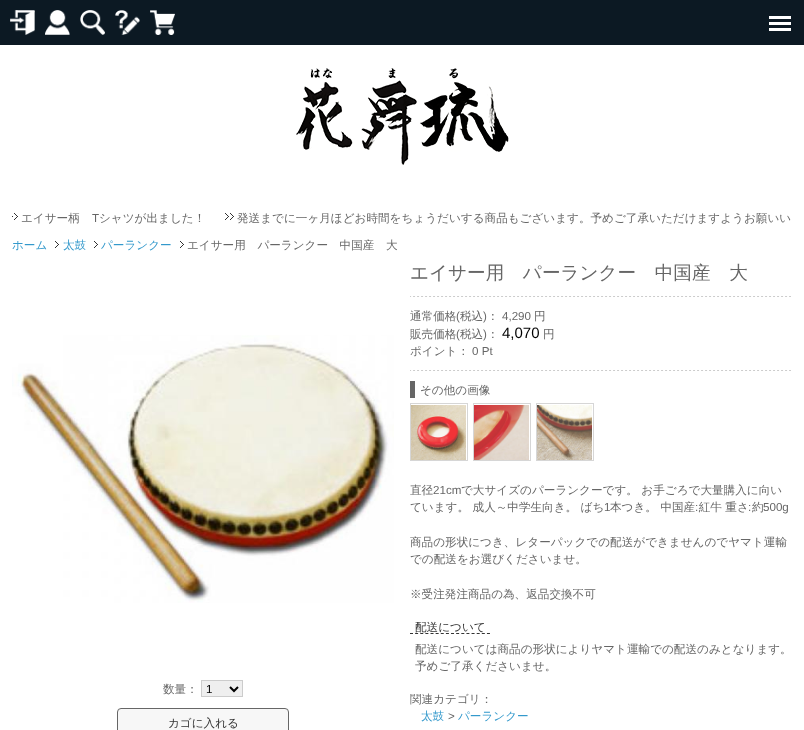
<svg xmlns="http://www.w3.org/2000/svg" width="804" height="730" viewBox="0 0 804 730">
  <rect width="100%" height="100%" fill="rgb(255,255,255)"/>
  <rect x="0" y="0" width="804" height="45" fill="rgb(12,25,35)"/>
  <rect x="769" y="16" width="22" height="3" fill="rgb(255,255,255)"/>
  <rect x="769" y="22" width="22" height="3" fill="rgb(255,255,255)"/>
  <rect x="769" y="28" width="22" height="3" fill="rgb(255,255,255)"/>
  <image x="10" y="10" width="25" height="25" href="pic1.png"/>
  <image x="45" y="10" width="25" height="25" href="pic2.png"/>
  <image x="80" y="10" width="25" height="25" href="pic3.png"/>
  <image x="115" y="10" width="25" height="25" href="pic4.png"/>
  <image x="150" y="10" width="25" height="25" href="pic5.png"/>
  <image x="296" y="68" width="213" height="97" href="pic6.png"/>
  <image x="12" y="213" width="6" height="7" href="pic7.png"/>
  <text x="21" y="222" font-family="WenQuanYi Zen Hei" font-size="11.6" font-weight="500" fill="rgb(102,102,102)">エイサー柄</text>
  <text x="92" y="222" font-family="Liberation Sans" font-size="11.6" fill="rgb(102,102,102)">T</text>
  <text x="99" y="222" font-family="WenQuanYi Zen Hei" font-size="11.6" font-weight="500" fill="rgb(102,102,102)">シャツが出ました！</text>
  <image x="225" y="213" width="9" height="7" href="pic8.png"/>
  <text x="237" y="222" font-family="WenQuanYi Zen Hei" font-size="11.6" font-weight="500" fill="rgb(102,102,102)">発送までに一ヶ月ほどお時間をちょうだいする商品もございます。予めご了承いただけますようお願いい</text>
  <text x="12" y="249" font-family="WenQuanYi Zen Hei" font-size="11.6" font-weight="500" fill="rgb(51,153,204)">ホーム</text>
  <image x="55" y="241" width="4" height="7" href="pic9.png"/>
  <text x="63" y="249" font-family="WenQuanYi Zen Hei" font-size="11.6" font-weight="500" fill="rgb(51,153,204)">太鼓</text>
  <image x="94" y="241" width="4" height="7" href="pic9.png"/>
  <text x="101" y="249" font-family="WenQuanYi Zen Hei" font-size="11.6" font-weight="500" fill="rgb(51,153,204)">パーランクー</text>
  <image x="180" y="241" width="4" height="7" href="pic9.png"/>
  <text x="187" y="249" font-family="WenQuanYi Zen Hei" font-size="11.6" font-weight="500" fill="rgb(102,102,102)">エイサー用　パーランクー　中国産　大</text>
  <image x="12" y="335" width="382" height="268" href="pic10.png"/>
  <text x="163" y="693" font-family="WenQuanYi Zen Hei" font-size="11.6" font-weight="500" fill="rgb(102,102,102)">数量：</text>
  <rect x="201.5" y="680.5" width="41" height="16" fill="rgb(239,239,239)" stroke="rgb(204,204,204)"/>
  <path d="M230 687L234 691L238 687" fill="none" stroke="rgb(0,0,0)" stroke-width="2"/>
  <text x="206" y="693" font-family="Liberation Sans" font-size="11.6" fill="rgb(0,0,0)">1</text>
  <rect x="117.5" y="708.5" width="171" height="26" rx="3.5" fill="rgb(247,247,247)" stroke="rgb(102,102,102)"/>
  <text x="168" y="727" font-family="WenQuanYi Zen Hei" font-size="11.6" font-weight="500" fill="rgb(51,51,51)">カゴに入れる</text>
  <image x="410" y="296" width="381" height="1" href="pic11.png"/>
  <text x="410" y="279" font-family="WenQuanYi Zen Hei" font-size="18.6" font-weight="500" fill="rgb(102,102,102)">エイサー用　パーランクー　中国産　大</text>
  <text x="410" y="320" font-family="WenQuanYi Zen Hei" font-size="11.6" font-weight="500" fill="rgb(102,102,102)">通常価格</text>
  <text x="456" y="320" font-family="Liberation Sans" font-size="11.6" fill="rgb(102,102,102)">(</text>
  <text x="460" y="320" font-family="WenQuanYi Zen Hei" font-size="11.6" font-weight="500" fill="rgb(102,102,102)">税込</text>
  <text x="483" y="320" font-family="Liberation Sans" font-size="11.6" fill="rgb(102,102,102)">)</text>
  <text x="487" y="320" font-family="WenQuanYi Zen Hei" font-size="11.6" font-weight="500" fill="rgb(102,102,102)">：</text>
  <text x="502" y="320" font-family="Liberation Sans" font-size="11.6" fill="rgb(102,102,102)">4,290</text>
  <g font-family="WenQuanYi Zen Hei" font-size="11.6" font-weight="500" fill="rgb(102,102,102)">
    <text x="534" y="320">円</text>
    <text x="410" y="338">販売価格</text>
  </g>
  <text x="456" y="338" font-family="Liberation Sans" font-size="11.6" fill="rgb(102,102,102)">(</text>
  <text x="460" y="338" font-family="WenQuanYi Zen Hei" font-size="11.6" font-weight="500" fill="rgb(102,102,102)">税込</text>
  <text x="483" y="338" font-family="Liberation Sans" font-size="11.6" fill="rgb(102,102,102)">)</text>
  <text x="487" y="338" font-family="WenQuanYi Zen Hei" font-size="11.6" font-weight="500" fill="rgb(102,102,102)">：</text>
  <text x="502" y="338" font-family="Liberation Sans" font-size="15" fill="rgb(0,0,0)">4,070</text>
  <g font-family="WenQuanYi Zen Hei" font-size="11.6" font-weight="500" fill="rgb(102,102,102)">
    <text x="543" y="338">円</text>
    <text x="410" y="355">ポイント：</text>
  </g>
  <text x="472" y="355" font-family="Liberation Sans" font-size="11.6" fill="rgb(102,102,102)">0 Pt</text>
  <image x="410" y="370" width="381" height="1" href="pic11.png"/>
  <rect x="410" y="381" width="5" height="17" fill="rgb(102,102,102)"/>
  <text x="420" y="394" font-family="WenQuanYi Zen Hei" font-size="11.6" font-weight="500" fill="rgb(102,102,102)">その他の画像</text>
  <rect x="410.5" y="403.5" width="57" height="57" fill="none" stroke="rgb(214,214,214)"/>
  <image x="411" y="405" width="55" height="55" href="pic12.png"/>
  <rect x="473.5" y="403.5" width="57" height="57" fill="none" stroke="rgb(214,214,214)"/>
  <image x="474" y="405" width="55" height="55" href="pic13.png"/>
  <rect x="536.5" y="403.5" width="57" height="57" fill="none" stroke="rgb(214,214,214)"/>
  <image x="537" y="405" width="55" height="55" href="pic14.png"/>
  <text x="410" y="494" font-family="WenQuanYi Zen Hei" font-size="11.6" font-weight="500" fill="rgb(102,102,102)">直径</text>
  <text x="433" y="494" font-family="Liberation Sans" font-size="11.6" fill="rgb(102,102,102)">21cm</text>
  <g font-family="WenQuanYi Zen Hei" font-size="11.6" font-weight="500" fill="rgb(102,102,102)">
    <text x="461" y="494">で大サイズのパーランクーです。 お手ごろで大量購入に向い</text>
    <text x="410" y="511">ています。 成人～中学生向き。 ばち</text>
  </g>
  <text x="604" y="511" font-family="Liberation Sans" font-size="11.6" fill="rgb(102,102,102)">1</text>
  <g font-family="WenQuanYi Zen Hei" font-size="11.6" font-weight="500" fill="rgb(102,102,102)">
    <text x="610" y="511">本つき。 中国産 紅牛 重さ</text>
    <text x="752" y="511">約</text>
  </g>
  <g font-family="Liberation Sans" font-size="11.6" fill="rgb(102,102,102)">
    <text x="763" y="511">500g</text>
    <text x="695" y="511">:</text>
    <text x="748" y="511">:</text>
  </g>
  <g font-family="WenQuanYi Zen Hei" font-size="11.6" font-weight="500" fill="rgb(102,102,102)">
    <text>
      <tspan x="410" y="546">商品の形状につき、レターパックでの配送ができませんのでヤマト運輸</tspan>
      <tspan x="410" y="563">での配送をお選びくださいませ。</tspan>
    </text>
    <text x="410" y="598">※受注発注商品の為、返品交換不可</text>
  </g>
  <text x="415" y="631" font-family="WenQuanYi Zen Hei" font-size="11.6" font-weight="500" fill="rgb(51,51,51)">配送について</text>
  <path d="M410 633.5H490" fill="none" stroke="rgb(51,51,51)" stroke-dasharray="3 2.13"/>
  <g font-family="WenQuanYi Zen Hei" font-size="11.6" font-weight="500" fill="rgb(102,102,102)">
    <text>
      <tspan x="415" y="653">配送については商品の形状によりヤマト運輸での配送のみとなります。</tspan>
      <tspan x="415" y="670">予めご了承くださいませ。</tspan>
    </text>
    <text x="410" y="703">関連カテゴリ：</text>
  </g>
  <text x="421" y="720" font-family="WenQuanYi Zen Hei" font-size="11.6" font-weight="500" fill="rgb(51,153,204)">太鼓</text>
  <text x="448" y="720" font-family="Liberation Sans" font-size="11.6" fill="rgb(102,102,102)">&gt;</text>
  <text x="458" y="720" font-family="WenQuanYi Zen Hei" font-size="11.6" font-weight="500" fill="rgb(51,153,204)">パーランクー</text>
</svg>
